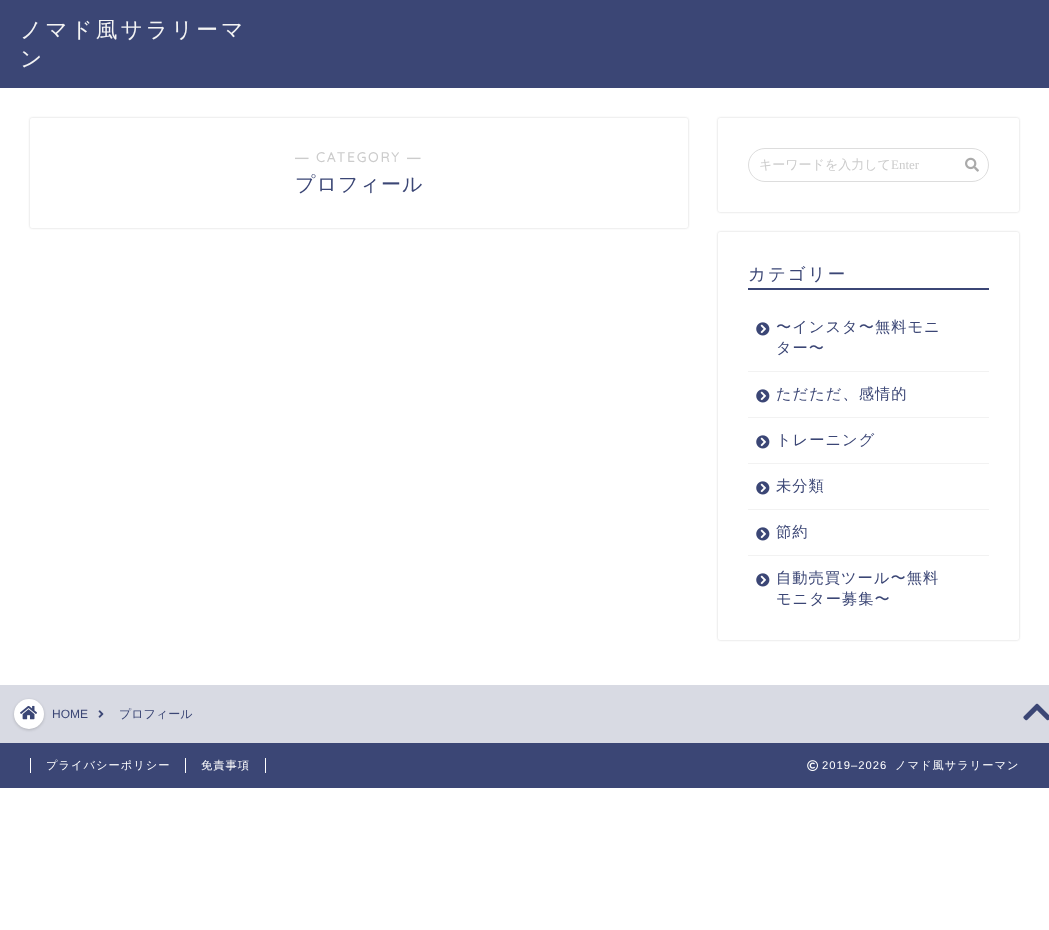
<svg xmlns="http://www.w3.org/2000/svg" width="1049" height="930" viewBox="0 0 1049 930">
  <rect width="100%" height="100%" fill="rgb(255,255,255)"/>
  <rect x="0" y="0" width="1049" height="88" fill="rgb(59,70,117)"/>
  <g font-family="WenQuanYi Zen Hei" font-size="21.75" font-weight="500" letter-spacing="3" fill="rgb(244,244,244)">
    <text>
      <tspan x="20" y="37">ノマド風サラリーマ</tspan>
      <tspan x="20" y="66">ン</tspan>
    </text>
  </g>
  <rect x="30" y="118" width="658" height="110" rx="2" fill="rgba(0,0,0,0.18)" filter="blur(1px)"/>
  <rect x="30" y="118" width="658" height="110" rx="2" fill="rgb(255,255,255)"/>
  <text x="295" y="162" font-family="Liberation Sans" font-size="13.5" font-weight="bold" letter-spacing="2" fill="rgb(204,204,204)">―</text>
  <text x="316" y="162" font-family="Quicksand" font-size="13.5" font-weight="bold" letter-spacing="2" fill="rgb(204,204,204)">CATEGORY</text>
  <text x="407" y="162" font-family="Liberation Sans" font-size="13.5" font-weight="bold" letter-spacing="2" fill="rgb(204,204,204)">―</text>
  <text x="295" y="191" font-family="WenQuanYi Zen Hei" font-size="20" font-weight="500" letter-spacing="1" fill="rgb(59,70,117)">プロフィール</text>
  <rect x="718" y="118" width="301" height="94" rx="2" fill="rgba(0,0,0,0.18)" filter="blur(1px)"/>
  <rect x="718" y="118" width="301" height="94" rx="2" fill="rgb(255,255,255)"/>
  <rect x="748.5" y="148.5" width="240" height="33" rx="16.5" fill="none" stroke="rgb(221,221,221)"/>
  <text x="759" y="169" font-family="WenQuanYi Zen Hei" font-size="13" font-weight="500" fill="rgb(204,204,204)">キーワードを入力して</text>
  <text x="891" y="169" font-family="Liberation Serif" font-size="13" fill="rgb(204,204,204)">Enter</text>
  <image x="965" y="157" width="14" height="15" href="pic1.png"/>
  <rect x="718" y="232" width="301" height="408" rx="2" fill="rgba(0,0,0,0.18)" filter="blur(1px)"/>
  <rect x="718" y="232" width="301" height="408" rx="2" fill="rgb(255,255,255)"/>
  <rect x="748" y="288" width="241" height="2" fill="rgb(59,70,117)"/>
  <text x="748" y="280" font-family="WenQuanYi Zen Hei" font-size="17.5" font-weight="500" letter-spacing="2" fill="rgb(59,70,117)">カテゴリー</text>
  <rect x="748" y="371" width="241" height="1" fill="rgb(242,242,242)"/>
  <image x="756" y="322" width="14" height="14" href="pic2.png"/>
  <g font-family="WenQuanYi Zen Hei" font-size="15.25" font-weight="500" letter-spacing="1" fill="rgb(59,70,117)">
    <text>
      <tspan x="776" y="332">〜インスタ〜無料モニ</tspan>
      <tspan x="776" y="353">ター〜</tspan>
    </text>
  </g>
  <rect x="748" y="417" width="241" height="1" fill="rgb(242,242,242)"/>
  <image x="756" y="389" width="14" height="14" href="pic2.png"/>
  <text x="776" y="399" font-family="WenQuanYi Zen Hei" font-size="15.25" font-weight="500" letter-spacing="1" fill="rgb(59,70,117)">ただただ、感情的</text>
  <rect x="748" y="463" width="241" height="1" fill="rgb(242,242,242)"/>
  <image x="756" y="435" width="14" height="14" href="pic2.png"/>
  <text x="776" y="445" font-family="WenQuanYi Zen Hei" font-size="15.25" font-weight="500" letter-spacing="1" fill="rgb(59,70,117)">トレーニング</text>
  <rect x="748" y="509" width="241" height="1" fill="rgb(242,242,242)"/>
  <image x="756" y="481" width="14" height="14" href="pic2.png"/>
  <text x="776" y="491" font-family="WenQuanYi Zen Hei" font-size="15.25" font-weight="500" letter-spacing="1" fill="rgb(59,70,117)">未分類</text>
  <rect x="748" y="555" width="241" height="1" fill="rgb(242,242,242)"/>
  <image x="756" y="527" width="14" height="14" href="pic2.png"/>
  <text x="776" y="537" font-family="WenQuanYi Zen Hei" font-size="15.25" font-weight="500" letter-spacing="1" fill="rgb(59,70,117)">節約</text>
  <image x="756" y="573" width="14" height="14" href="pic2.png"/>
  <g font-family="WenQuanYi Zen Hei" font-size="15.25" font-weight="500" letter-spacing="1" fill="rgb(59,70,117)">
    <text>
      <tspan x="776" y="583">自動売買ツール〜無料</tspan>
      <tspan x="776" y="604">モニター募集〜</tspan>
    </text>
  </g>
  <rect x="0" y="685" width="1049" height="58" fill="rgb(216,218,227)"/>
  <rect x="14" y="700" width="30" height="30" rx="15" fill="rgba(0,0,0,0.18)" filter="blur(1.5px)"/>
  <circle cx="29" cy="714" r="15" fill="rgb(255,255,255)"/>
  <image x="20" y="705" width="17" height="15" href="pic3.png"/>
  <text x="52" y="718" font-family="Liberation Sans" font-size="12" fill="rgb(59,70,117)">HOME</text>
  <image x="98" y="710" width="6" height="8" href="pic4.png"/>
  <text x="119" y="718" font-family="WenQuanYi Zen Hei" font-size="12" font-weight="500" fill="rgb(59,70,117)">プロフィール</text>
  <image x="1023" y="703" width="26" height="18" href="pic5.png"/>
  <rect x="0" y="743" width="1049" height="45" fill="rgb(59,70,117)"/>
  <rect x="185" y="758" width="1" height="15" fill="rgb(255,255,255)"/>
  <rect x="30" y="758" width="1" height="15" fill="rgb(255,255,255)"/>
  <text x="46" y="769" font-family="WenQuanYi Zen Hei" font-size="11.25" font-weight="500" letter-spacing="1" fill="rgb(255,255,255)">プライバシーポリシー</text>
  <rect x="265" y="758" width="1" height="15" fill="rgb(255,255,255)"/>
  <text x="201" y="769" font-family="WenQuanYi Zen Hei" font-size="11.25" font-weight="500" letter-spacing="1" fill="rgb(255,255,255)">免責事項</text>
  <image x="807" y="760" width="11" height="11" href="pic6.png"/>
  <text x="822" y="769" font-family="Liberation Sans" font-size="11.25" letter-spacing="1" fill="rgb(255,255,255)">2019–2026</text>
  <text x="895" y="769" font-family="WenQuanYi Zen Hei" font-size="11.25" font-weight="500" letter-spacing="1" fill="rgb(255,255,255)">ノマド風サラリーマン</text>
</svg>
